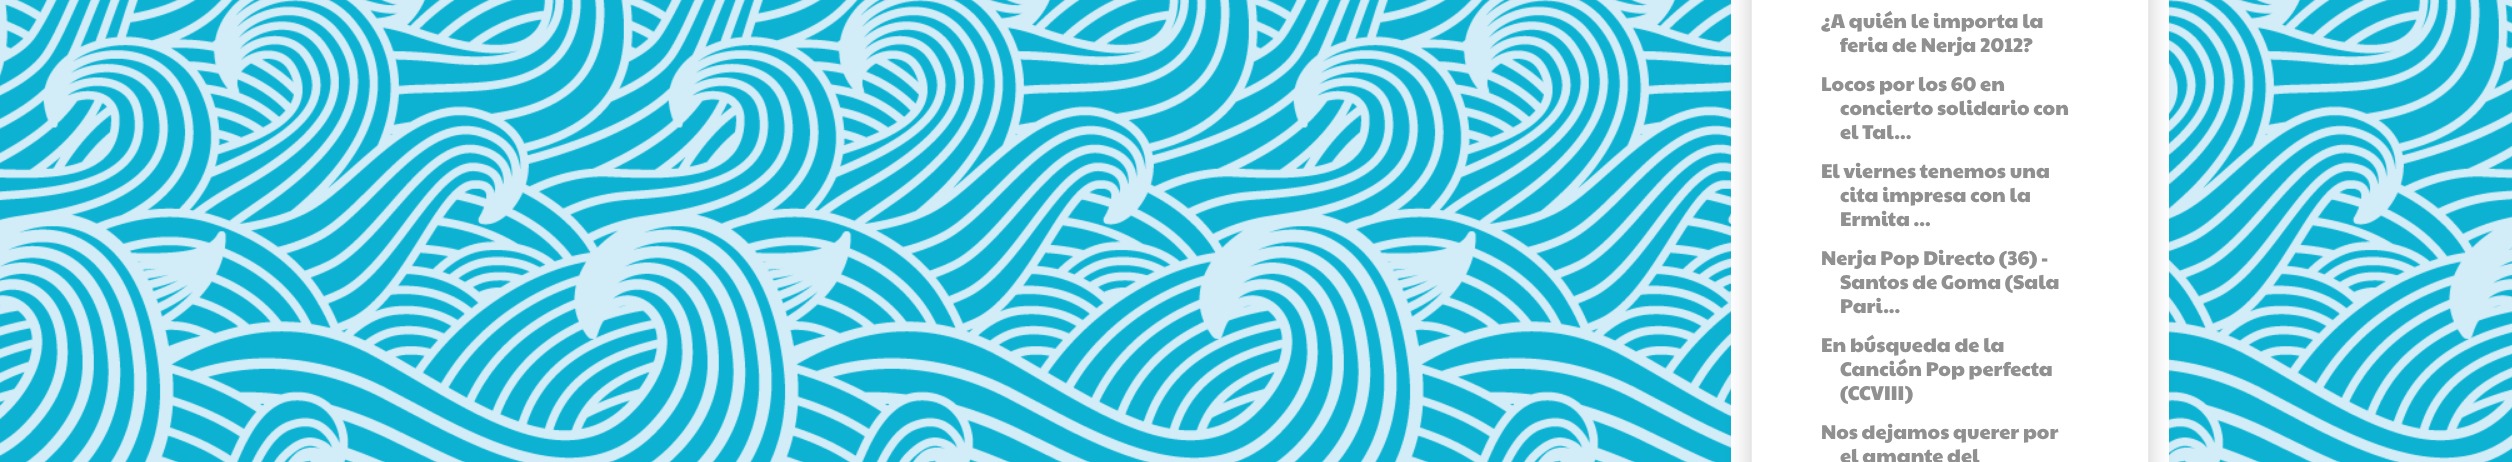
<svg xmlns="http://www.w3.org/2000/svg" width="2512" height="462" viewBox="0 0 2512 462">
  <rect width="100%" height="100%" fill="rgb(255,255,255)"/>
  <image x="0" y="0" width="2512" height="462" href="pic1.png"/>
  <rect x="1731" y="0" width="438" height="462" fill="rgb(255,255,255)"/>
  <rect x="1751" y="-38" width="398" height="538" fill="rgba(0,0,0,0.2)" filter="blur(12.5px)"/>
  <rect x="1751.5" y="-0.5" width="397" height="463" fill="rgb(255,255,255)" stroke="rgb(234,234,234)"/>
  <g font-family="Paytone One" font-size="20" fill="rgb(144,144,144)">
    <text x="1821" y="28">¿A quién le importa la</text>
    <text x="1840" y="52">feria de Nerja 2012?</text>
    <text x="1821" y="91">Locos por los 60 en</text>
    <text>
      <tspan x="1840" y="115">concierto solidario con</tspan>
      <tspan x="1840" y="139">el Tal...</tspan>
    </text>
    <text x="1821" y="178">El viernes tenemos una</text>
    <text>
      <tspan x="1840" y="202">cita impresa con la</tspan>
      <tspan x="1840" y="226">Ermita ...</tspan>
    </text>
    <text x="1821" y="265">Nerja Pop Directo (36) -</text>
    <text>
      <tspan x="1840" y="289">Santos de Goma (Sala</tspan>
      <tspan x="1840" y="313">Pari...</tspan>
    </text>
    <text x="1821" y="352">En búsqueda de la</text>
    <text>
      <tspan x="1840" y="376">Canción Pop perfecta</tspan>
      <tspan x="1840" y="400">(CCVIII)</tspan>
    </text>
    <text x="1821" y="439">Nos dejamos querer por</text>
    <text x="1840" y="463">el amante del</text>
  </g>
</svg>
